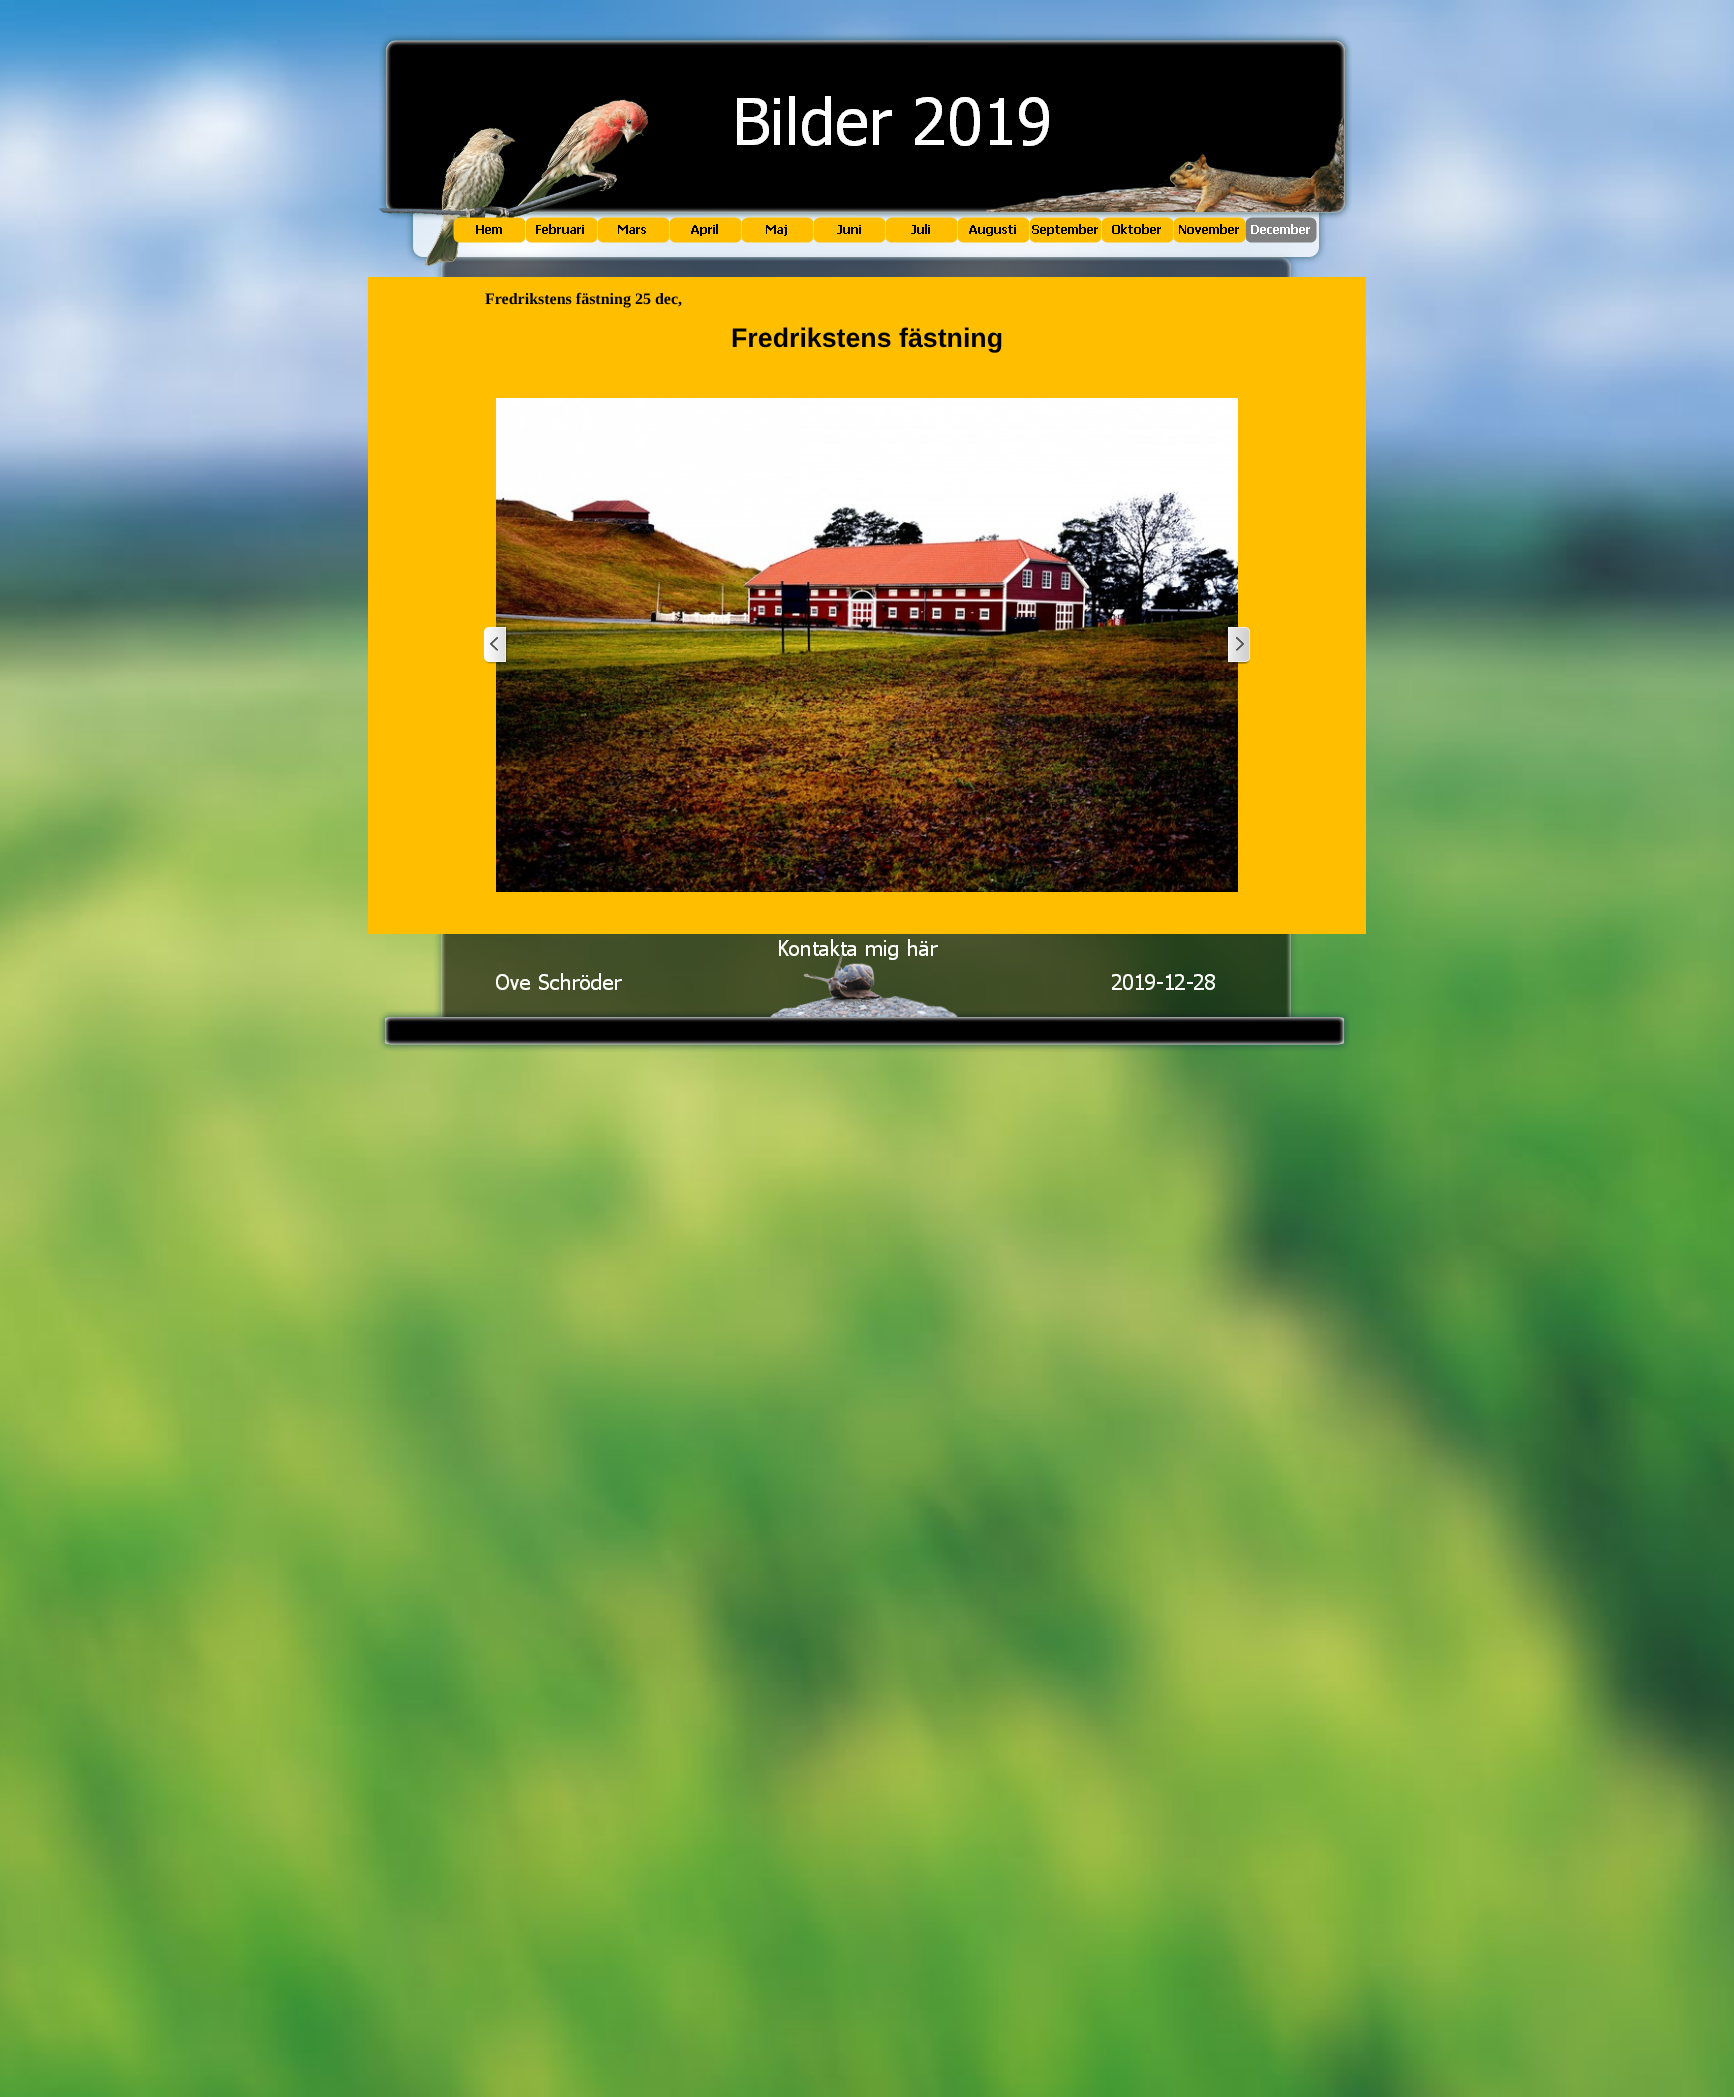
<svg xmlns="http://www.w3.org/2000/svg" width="1734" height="2097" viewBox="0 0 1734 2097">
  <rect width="100%" height="100%" fill="rgb(255,255,255)"/>
  <image x="0" y="0" width="1734" height="2097" href="pic1.png"/>
  <image x="378" y="1" width="974" height="211" href="pic2.png"/>
  <image x="382" y="212" width="966" height="65" href="pic3.png"/>
  <image x="453" y="217" width="72" height="26" href="pic4.png"/>
  <image x="525" y="217" width="72" height="26" href="pic5.png"/>
  <image x="597" y="217" width="72" height="26" href="pic6.png"/>
  <image x="669" y="217" width="72" height="26" href="pic7.png"/>
  <image x="741" y="217" width="72" height="26" href="pic8.png"/>
  <image x="813" y="217" width="72" height="26" href="pic9.png"/>
  <image x="885" y="217" width="72" height="26" href="pic10.png"/>
  <image x="957" y="217" width="72" height="26" href="pic11.png"/>
  <image x="1029" y="217" width="72" height="26" href="pic12.png"/>
  <image x="1101" y="217" width="72" height="26" href="pic13.png"/>
  <image x="1173" y="217" width="72" height="26" href="pic14.png"/>
  <image x="1245" y="217" width="72" height="26" href="pic15.png"/>
  <rect x="368" y="277" width="998" height="657" fill="rgb(255,191,0)"/>
  <text x="485" y="304" font-family="Liberation Serif" font-size="16" font-weight="bold" fill="rgb(0,0,0)">Fredrikstens fästning 25 dec,</text>
  <text x="731" y="347" font-family="Liberation Sans" font-size="26.75" font-weight="bold" fill="rgb(0,0,0)">Fredrikstens fästning</text>
  <image x="496" y="398" width="742" height="494" href="pic16.png"/>
  <image x="484" y="627" width="24" height="37" href="pic17.png"/>
  <image x="1226" y="627" width="24" height="37" href="pic18.png"/>
  <image x="378" y="934" width="972" height="118" href="pic19.png"/>
</svg>
